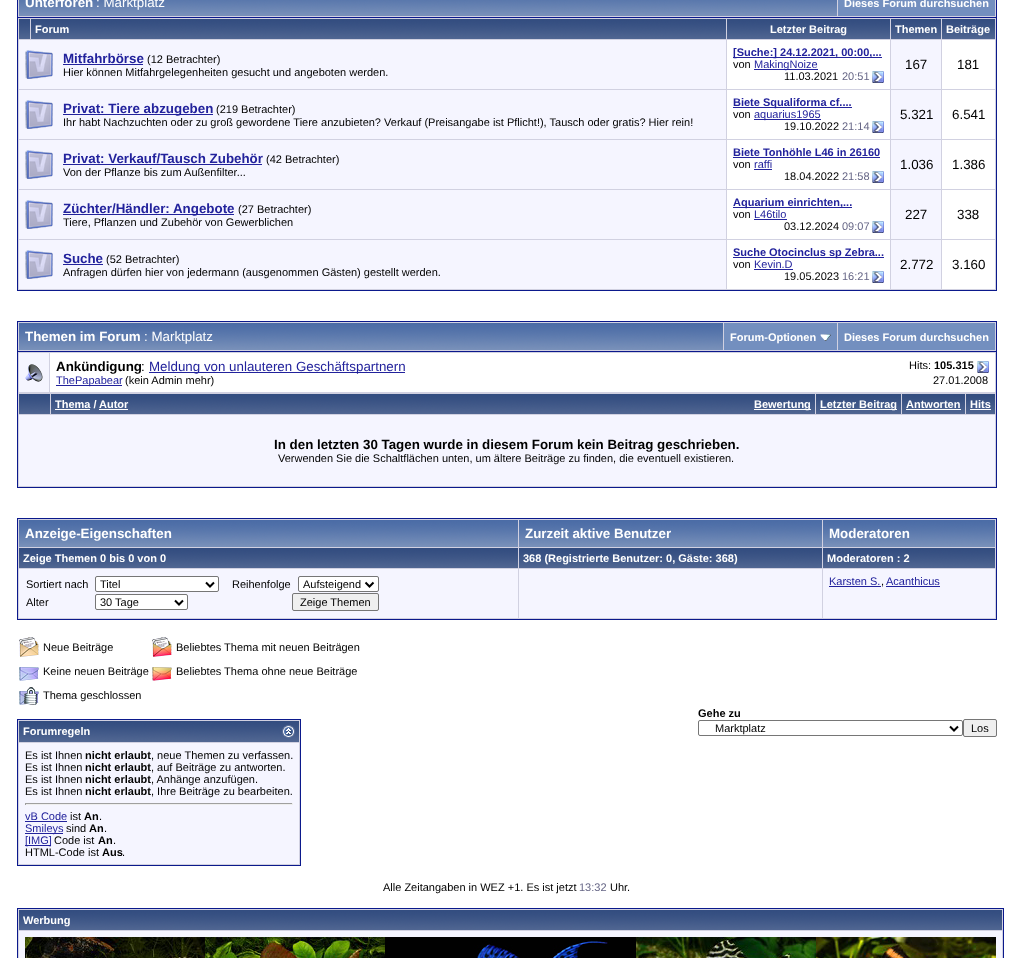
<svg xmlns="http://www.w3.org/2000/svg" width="1013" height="958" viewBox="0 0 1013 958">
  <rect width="100%" height="100%" fill="rgb(255,255,255)"/>
  <rect x="18" y="0" width="978" height="17" fill="rgb(209,209,225)"/>
  <rect x="996" y="0" width="1" height="17" fill="rgb(11,25,140)"/>
  <rect x="17" y="0" width="1" height="17" fill="rgb(11,25,140)"/>
  <image x="19" y="0" width="818" height="16" href="pic1.png"/>
  <text x="25" y="7" font-family="Liberation Sans" font-size="13.35" font-weight="bold" fill="rgb(255,255,255)">Unterforen</text>
  <text x="96" y="7" font-family="Liberation Sans" font-size="13.35" fill="rgb(255,255,255)">: Marktplatz</text>
  <rect x="838" y="0" width="157" height="16" fill="rgb(115,143,191)"/>
  <text x="844" y="7" font-family="Liberation Sans" font-size="11" font-weight="bold" fill="rgb(255,255,255)">Dieses Forum durchsuchen</text>
  <rect x="17.5" y="17.5" width="979" height="273" fill="rgb(209,209,225)" stroke="rgb(11,25,140)"/>
  <image x="19" y="19" width="11" height="20" href="pic2.png"/>
  <image x="31" y="19" width="695" height="20" href="pic3.png"/>
  <text x="35" y="33" font-family="Liberation Sans" font-size="11" font-weight="bold" fill="rgb(255,255,255)">Forum</text>
  <image x="727" y="19" width="163" height="20" href="pic4.png"/>
  <text x="770" y="33" font-family="Liberation Sans" font-size="11" font-weight="bold" fill="rgb(255,255,255)">Letzter Beitrag</text>
  <image x="891" y="19" width="50" height="20" href="pic5.png"/>
  <text x="895" y="33" font-family="Liberation Sans" font-size="11" font-weight="bold" fill="rgb(255,255,255)">Themen</text>
  <image x="942" y="19" width="53" height="20" href="pic6.png"/>
  <text x="946" y="33" font-family="Liberation Sans" font-size="11" font-weight="bold" fill="rgb(255,255,255)">Beiträge</text>
  <rect x="19" y="40" width="707" height="49" fill="rgb(245,245,255)"/>
  <image x="25" y="50" width="28" height="29" href="pic7.png"/>
  <text x="63" y="63" font-family="Liberation Sans" font-size="13.35" font-weight="bold" fill="rgb(34,34,156)">Mitfahrbörse</text>
  <rect x="63" y="64" width="80" height="1" fill="rgb(34,34,156)"/>
  <g font-family="Liberation Sans" font-size="11" fill="rgb(0,0,0)">
    <text x="147" y="63">(12 Betrachter)</text>
    <text x="63" y="76">Hier können Mitfahrgelegenheiten gesucht und angeboten werden.</text>
  </g>
  <rect x="727" y="40" width="163" height="49" fill="rgb(255,255,255)"/>
  <rect x="733" y="57" width="149" height="1" fill="rgb(34,34,156)"/>
  <text x="733" y="56" font-family="Liberation Sans" font-size="11" font-weight="bold" fill="rgb(34,34,156)">[Suche:] 24.12.2021, 00:00,...</text>
  <text x="733" y="68" font-family="Liberation Sans" font-size="11" fill="rgb(0,0,0)">von</text>
  <rect x="754" y="69" width="64" height="1" fill="rgb(34,34,156)"/>
  <text x="754" y="68" font-family="Liberation Sans" font-size="11" fill="rgb(34,34,156)">MakingNoize</text>
  <text x="784" y="80" font-family="Liberation Sans" font-size="11" fill="rgb(0,0,0)">11.03.2021</text>
  <text x="842" y="80" font-family="Liberation Sans" font-size="11" fill="rgb(102,102,134)">20:51</text>
  <image x="872" y="71" width="12" height="12" href="pic8.png"/>
  <rect x="891" y="40" width="50" height="49" fill="rgb(245,245,255)"/>
  <text x="905" y="69" font-family="Liberation Sans" font-size="13.35" fill="rgb(0,0,0)">167</text>
  <rect x="942" y="40" width="53" height="49" fill="rgb(255,255,255)"/>
  <text x="957" y="69" font-family="Liberation Sans" font-size="13.35" fill="rgb(0,0,0)">181</text>
  <rect x="19" y="90" width="707" height="49" fill="rgb(245,245,255)"/>
  <image x="25" y="100" width="28" height="29" href="pic7.png"/>
  <rect x="63" y="114" width="150" height="1" fill="rgb(34,34,156)"/>
  <text x="63" y="113" font-family="Liberation Sans" font-size="13.35" font-weight="bold" fill="rgb(34,34,156)">Privat: Tiere abzugeben</text>
  <g font-family="Liberation Sans" font-size="11" fill="rgb(0,0,0)">
    <text x="216" y="113">(219 Betrachter)</text>
    <text x="63" y="126">Ihr habt Nachzuchten oder zu groß gewordene Tiere anzubieten? Verkauf (Preisangabe ist Pflicht!), Tausch oder gratis? Hier rein!</text>
  </g>
  <rect x="727" y="90" width="163" height="49" fill="rgb(255,255,255)"/>
  <rect x="733" y="107" width="119" height="1" fill="rgb(34,34,156)"/>
  <text x="733" y="106" font-family="Liberation Sans" font-size="11" font-weight="bold" fill="rgb(34,34,156)">Biete Squaliforma cf....</text>
  <text x="733" y="118" font-family="Liberation Sans" font-size="11" fill="rgb(0,0,0)">von</text>
  <rect x="754" y="119" width="67" height="1" fill="rgb(34,34,156)"/>
  <text x="754" y="118" font-family="Liberation Sans" font-size="11" fill="rgb(34,34,156)">aquarius1965</text>
  <text x="784" y="130" font-family="Liberation Sans" font-size="11" fill="rgb(0,0,0)">19.10.2022</text>
  <text x="842" y="130" font-family="Liberation Sans" font-size="11" fill="rgb(102,102,134)">21:14</text>
  <image x="872" y="121" width="12" height="12" href="pic8.png"/>
  <rect x="891" y="90" width="50" height="49" fill="rgb(245,245,255)"/>
  <text x="900" y="119" font-family="Liberation Sans" font-size="13.35" fill="rgb(0,0,0)">5.321</text>
  <rect x="942" y="90" width="53" height="49" fill="rgb(255,255,255)"/>
  <text x="952" y="119" font-family="Liberation Sans" font-size="13.35" fill="rgb(0,0,0)">6.541</text>
  <rect x="19" y="140" width="707" height="49" fill="rgb(245,245,255)"/>
  <image x="25" y="150" width="28" height="29" href="pic7.png"/>
  <text x="63" y="163" font-family="Liberation Sans" font-size="13.35" font-weight="bold" fill="rgb(34,34,156)">Privat: Verkauf/Tausch Zubehör</text>
  <rect x="63" y="164" width="199" height="1" fill="rgb(34,34,156)"/>
  <g font-family="Liberation Sans" font-size="11" fill="rgb(0,0,0)">
    <text x="266" y="163">(42 Betrachter)</text>
    <text x="63" y="176">Von der Pflanze bis zum Außenfilter...</text>
  </g>
  <rect x="727" y="140" width="163" height="49" fill="rgb(255,255,255)"/>
  <text x="733" y="156" font-family="Liberation Sans" font-size="11" font-weight="bold" fill="rgb(34,34,156)">Biete Tonhöhle L46 in 26160</text>
  <rect x="733" y="157" width="147" height="1" fill="rgb(34,34,156)"/>
  <text x="733" y="168" font-family="Liberation Sans" font-size="11" fill="rgb(0,0,0)">von</text>
  <text x="754" y="168" font-family="Liberation Sans" font-size="11" fill="rgb(34,34,156)">raffi</text>
  <rect x="754" y="169" width="18" height="1" fill="rgb(34,34,156)"/>
  <text x="784" y="180" font-family="Liberation Sans" font-size="11" fill="rgb(0,0,0)">18.04.2022</text>
  <text x="842" y="180" font-family="Liberation Sans" font-size="11" fill="rgb(102,102,134)">21:58</text>
  <image x="872" y="171" width="12" height="12" href="pic8.png"/>
  <rect x="891" y="140" width="50" height="49" fill="rgb(245,245,255)"/>
  <text x="900" y="169" font-family="Liberation Sans" font-size="13.35" fill="rgb(0,0,0)">1.036</text>
  <rect x="942" y="140" width="53" height="49" fill="rgb(255,255,255)"/>
  <text x="952" y="169" font-family="Liberation Sans" font-size="13.35" fill="rgb(0,0,0)">1.386</text>
  <rect x="19" y="190" width="707" height="49" fill="rgb(245,245,255)"/>
  <image x="25" y="200" width="28" height="29" href="pic7.png"/>
  <rect x="63" y="214" width="171" height="1" fill="rgb(34,34,156)"/>
  <text x="63" y="213" font-family="Liberation Sans" font-size="13.35" font-weight="bold" fill="rgb(34,34,156)">Züchter/Händler: Angebote</text>
  <g font-family="Liberation Sans" font-size="11" fill="rgb(0,0,0)">
    <text x="238" y="213">(27 Betrachter)</text>
    <text x="63" y="226">Tiere, Pflanzen und Zubehör von Gewerblichen</text>
  </g>
  <rect x="727" y="190" width="163" height="49" fill="rgb(255,255,255)"/>
  <rect x="733" y="207" width="119" height="1" fill="rgb(34,34,156)"/>
  <text x="733" y="206" font-family="Liberation Sans" font-size="11" font-weight="bold" fill="rgb(34,34,156)">Aquarium einrichten,...</text>
  <text x="733" y="218" font-family="Liberation Sans" font-size="11" fill="rgb(0,0,0)">von</text>
  <text x="754" y="218" font-family="Liberation Sans" font-size="11" fill="rgb(34,34,156)">L46tilo</text>
  <rect x="754" y="219" width="33" height="1" fill="rgb(34,34,156)"/>
  <text x="784" y="230" font-family="Liberation Sans" font-size="11" fill="rgb(0,0,0)">03.12.2024</text>
  <text x="842" y="230" font-family="Liberation Sans" font-size="11" fill="rgb(102,102,134)">09:07</text>
  <image x="872" y="221" width="12" height="12" href="pic8.png"/>
  <rect x="891" y="190" width="50" height="49" fill="rgb(245,245,255)"/>
  <text x="905" y="219" font-family="Liberation Sans" font-size="13.35" fill="rgb(0,0,0)">227</text>
  <rect x="942" y="190" width="53" height="49" fill="rgb(255,255,255)"/>
  <text x="957" y="219" font-family="Liberation Sans" font-size="13.35" fill="rgb(0,0,0)">338</text>
  <rect x="19" y="240" width="707" height="49" fill="rgb(245,245,255)"/>
  <image x="25" y="250" width="28" height="29" href="pic7.png"/>
  <text x="63" y="263" font-family="Liberation Sans" font-size="13.35" font-weight="bold" fill="rgb(34,34,156)">Suche</text>
  <rect x="63" y="264" width="40" height="1" fill="rgb(34,34,156)"/>
  <g font-family="Liberation Sans" font-size="11" fill="rgb(0,0,0)">
    <text x="106" y="263">(52 Betrachter)</text>
    <text x="63" y="276">Anfragen dürfen hier von jedermann (ausgenommen Gästen) gestellt werden.</text>
  </g>
  <rect x="727" y="240" width="163" height="49" fill="rgb(255,255,255)"/>
  <rect x="733" y="257" width="151" height="1" fill="rgb(34,34,156)"/>
  <text x="733" y="256" font-family="Liberation Sans" font-size="11" font-weight="bold" fill="rgb(34,34,156)">Suche Otocinclus sp Zebra...</text>
  <text x="733" y="268" font-family="Liberation Sans" font-size="11" fill="rgb(0,0,0)">von</text>
  <text x="754" y="268" font-family="Liberation Sans" font-size="11" fill="rgb(34,34,156)">Kevin.D</text>
  <rect x="754" y="269" width="39" height="1" fill="rgb(34,34,156)"/>
  <text x="784" y="280" font-family="Liberation Sans" font-size="11" fill="rgb(0,0,0)">19.05.2023</text>
  <text x="842" y="280" font-family="Liberation Sans" font-size="11" fill="rgb(102,102,134)">16:21</text>
  <image x="872" y="271" width="12" height="12" href="pic8.png"/>
  <rect x="891" y="240" width="50" height="49" fill="rgb(245,245,255)"/>
  <text x="900" y="269" font-family="Liberation Sans" font-size="13.35" fill="rgb(0,0,0)">2.772</text>
  <rect x="942" y="240" width="53" height="49" fill="rgb(255,255,255)"/>
  <text x="952" y="269" font-family="Liberation Sans" font-size="13.35" fill="rgb(0,0,0)">3.160</text>
  <rect x="18" y="322" width="978" height="29" fill="rgb(209,209,225)"/>
  <rect x="17" y="321" width="980" height="1" fill="rgb(11,25,140)"/>
  <rect x="996" y="321" width="1" height="30" fill="rgb(11,25,140)"/>
  <rect x="17" y="321" width="1" height="30" fill="rgb(11,25,140)"/>
  <image x="19" y="323" width="704" height="27" href="pic9.png"/>
  <text x="25" y="341" font-family="Liberation Sans" font-size="13.35" font-weight="bold" fill="rgb(255,255,255)">Themen im Forum</text>
  <text x="144" y="341" font-family="Liberation Sans" font-size="13.35" fill="rgb(255,255,255)">: Marktplatz</text>
  <rect x="724" y="323" width="113" height="27" fill="rgb(115,143,191)"/>
  <text x="730" y="341" font-family="Liberation Sans" font-size="11" font-weight="bold" fill="rgb(255,255,255)">Forum-Optionen</text>
  <image x="820" y="334" width="11" height="7" href="pic10.png"/>
  <rect x="838" y="323" width="157" height="27" fill="rgb(115,143,191)"/>
  <text x="844" y="341" font-family="Liberation Sans" font-size="11" font-weight="bold" fill="rgb(255,255,255)">Dieses Forum durchsuchen</text>
  <rect x="17.5" y="351.5" width="979" height="136" fill="rgb(209,209,225)" stroke="rgb(11,25,140)"/>
  <rect x="19" y="353" width="30" height="39" fill="rgb(245,245,255)"/>
  <image x="25" y="364" width="18" height="18" href="pic11.png"/>
  <rect x="50" y="353" width="945" height="39" fill="rgb(255,255,255)"/>
  <text x="56" y="371" font-family="Liberation Sans" font-size="13.35" font-weight="bold" fill="rgb(0,0,0)">Ankündigung</text>
  <text x="141" y="371" font-family="Liberation Sans" font-size="13.35" fill="rgb(0,0,0)">:</text>
  <rect x="149" y="372" width="256" height="1" fill="rgb(34,34,156)"/>
  <text x="149" y="371" font-family="Liberation Sans" font-size="13.35" fill="rgb(34,34,156)">Meldung von unlauteren Geschäftspartnern</text>
  <text x="909" y="369" font-family="Liberation Sans" font-size="11" fill="rgb(0,0,0)">Hits:</text>
  <text x="934" y="369" font-family="Liberation Sans" font-size="11" font-weight="bold" fill="rgb(0,0,0)">105.315</text>
  <image x="977" y="361" width="12" height="12" href="pic8.png"/>
  <rect x="56" y="385" width="66" height="1" fill="rgb(34,34,156)"/>
  <text x="56" y="384" font-family="Liberation Sans" font-size="11" fill="rgb(34,34,156)">ThePapabear</text>
  <g font-family="Liberation Sans" font-size="11" fill="rgb(0,0,0)">
    <text x="125" y="384">(kein Admin mehr)</text>
    <text x="933" y="384">27.01.2008</text>
  </g>
  <image x="19" y="394" width="31" height="20" href="pic12.png"/>
  <image x="51" y="394" width="764" height="20" href="pic13.png"/>
  <text x="55" y="408" font-family="Liberation Sans" font-size="11" font-weight="bold" fill="rgb(255,255,255)">Thema /</text>
  <rect x="55" y="409" width="35" height="1" fill="rgb(255,255,255)"/>
  <text x="99" y="408" font-family="Liberation Sans" font-size="11" font-weight="bold" fill="rgb(255,255,255)">Autor</text>
  <rect x="99" y="409" width="29" height="1" fill="rgb(255,255,255)"/>
  <rect x="754" y="409" width="57" height="1" fill="rgb(255,255,255)"/>
  <text x="754" y="408" font-family="Liberation Sans" font-size="11" font-weight="bold" fill="rgb(255,255,255)">Bewertung</text>
  <image x="816" y="394" width="85" height="20" href="pic14.png"/>
  <rect x="820" y="409" width="77" height="1" fill="rgb(255,255,255)"/>
  <text x="820" y="408" font-family="Liberation Sans" font-size="11" font-weight="bold" fill="rgb(255,255,255)">Letzter Beitrag</text>
  <image x="902" y="394" width="63" height="20" href="pic15.png"/>
  <text x="906" y="408" font-family="Liberation Sans" font-size="11" font-weight="bold" fill="rgb(255,255,255)">Antworten</text>
  <rect x="906" y="409" width="55" height="1" fill="rgb(255,255,255)"/>
  <image x="966" y="394" width="29" height="20" href="pic16.png"/>
  <text x="970" y="408" font-family="Liberation Sans" font-size="11" font-weight="bold" fill="rgb(255,255,255)">Hits</text>
  <rect x="970" y="409" width="21" height="1" fill="rgb(255,255,255)"/>
  <rect x="19" y="415" width="976" height="71" fill="rgb(245,245,255)"/>
  <text x="274" y="449" font-family="Liberation Sans" font-size="13.35" font-weight="bold" fill="rgb(0,0,0)">In den letzten 30 Tagen wurde in diesem Forum kein Beitrag geschrieben.</text>
  <text x="278" y="462" font-family="Liberation Sans" font-size="11" fill="rgb(0,0,0)">Verwenden Sie die Schaltflächen unten, um ältere Beiträge zu finden, die eventuell existieren.</text>
  <rect x="17.5" y="518.5" width="979" height="101" fill="rgb(209,209,225)" stroke="rgb(11,25,140)"/>
  <image x="19" y="520" width="499" height="27" href="pic17.png"/>
  <text x="25" y="538" font-family="Liberation Sans" font-size="13.35" font-weight="bold" fill="rgb(255,255,255)">Anzeige-Eigenschaften</text>
  <image x="519" y="520" width="303" height="27" href="pic18.png"/>
  <text x="525" y="538" font-family="Liberation Sans" font-size="13.35" font-weight="bold" fill="rgb(255,255,255)">Zurzeit aktive Benutzer</text>
  <image x="823" y="520" width="172" height="27" href="pic19.png"/>
  <text x="829" y="538" font-family="Liberation Sans" font-size="13.35" font-weight="bold" fill="rgb(255,255,255)">Moderatoren</text>
  <image x="19" y="548" width="499" height="20" href="pic20.png"/>
  <text x="23" y="562" font-family="Liberation Sans" font-size="11" font-weight="bold" fill="rgb(255,255,255)">Zeige Themen 0 bis 0 von 0</text>
  <image x="519" y="548" width="303" height="20" href="pic21.png"/>
  <text x="523" y="562" font-family="Liberation Sans" font-size="11" font-weight="bold" fill="rgb(255,255,255)">368 (Registrierte Benutzer: 0, Gäste: 368)</text>
  <image x="823" y="548" width="172" height="20" href="pic22.png"/>
  <text x="827" y="562" font-family="Liberation Sans" font-size="11" font-weight="bold" fill="rgb(255,255,255)">Moderatoren : 2</text>
  <rect x="19" y="569" width="499" height="49" fill="rgb(245,245,255)"/>
  <text x="26" y="588" font-family="Liberation Sans" font-size="11" fill="rgb(0,0,0)">Sortiert nach</text>
  <rect x="95.5" y="576.5" width="123" height="15" rx="1.5" fill="rgb(255,255,255)" stroke="rgb(118,118,118)"/>
  <path d="M206 582.5L210 586.5L214 582.5" fill="none" stroke="rgb(0,0,0)" stroke-width="2"/>
  <g font-family="Liberation Sans" font-size="11" fill="rgb(0,0,0)">
    <text x="100" y="588">Titel</text>
    <text x="232" y="588">Reihenfolge</text>
  </g>
  <rect x="298.5" y="576.5" width="80" height="15" rx="1.5" fill="rgb(255,255,255)" stroke="rgb(118,118,118)"/>
  <path d="M365.5 582.5L369.5 586.5L373.5 582.5" fill="none" stroke="rgb(0,0,0)" stroke-width="2"/>
  <g font-family="Liberation Sans" font-size="11" fill="rgb(0,0,0)">
    <text x="303" y="588">Aufsteigend</text>
    <text x="26" y="606">Alter</text>
  </g>
  <rect x="95.5" y="594.5" width="92" height="15" rx="1.5" fill="rgb(255,255,255)" stroke="rgb(118,118,118)"/>
  <path d="M175 600.5L179 604.5L183 600.5" fill="none" stroke="rgb(0,0,0)" stroke-width="2"/>
  <text x="100" y="606" font-family="Liberation Sans" font-size="11" fill="rgb(0,0,0)">30 Tage</text>
  <rect x="292.5" y="593.5" width="86" height="17" rx="1.5" fill="rgb(239,239,239)" stroke="rgb(118,118,118)"/>
  <text x="300" y="606" font-family="Liberation Sans" font-size="11" fill="rgb(0,0,0)">Zeige Themen</text>
  <rect x="519" y="569" width="303" height="49" fill="rgb(245,245,255)"/>
  <rect x="823" y="569" width="172" height="49" fill="rgb(245,245,255)"/>
  <text x="829" y="585" font-family="Liberation Sans" font-size="11" fill="rgb(34,34,156)">Karsten S.</text>
  <rect x="829" y="586" width="52" height="1" fill="rgb(34,34,156)"/>
  <text x="881" y="585" font-family="Liberation Sans" font-size="11" fill="rgb(0,0,0)">,</text>
  <text x="886" y="585" font-family="Liberation Sans" font-size="11" fill="rgb(34,34,156)">Acanthicus</text>
  <rect x="886" y="586" width="54" height="1" fill="rgb(34,34,156)"/>
  <image x="19" y="637" width="20" height="20" href="pic23.png"/>
  <text x="43" y="651" font-family="Liberation Sans" font-size="11" fill="rgb(0,0,0)">Neue Beiträge</text>
  <image x="152" y="637" width="20" height="20" href="pic24.png"/>
  <text x="176" y="651" font-family="Liberation Sans" font-size="11" fill="rgb(0,0,0)">Beliebtes Thema mit neuen Beiträgen</text>
  <image x="19" y="667" width="20" height="14" href="pic25.png"/>
  <text x="43" y="675" font-family="Liberation Sans" font-size="11" fill="rgb(0,0,0)">Keine neuen Beiträge</text>
  <image x="152" y="667" width="20" height="14" href="pic26.png"/>
  <text x="176" y="675" font-family="Liberation Sans" font-size="11" fill="rgb(0,0,0)">Beliebtes Thema ohne neue Beiträge</text>
  <image x="19" y="687" width="20" height="18" href="pic27.png"/>
  <text x="43" y="699" font-family="Liberation Sans" font-size="11" fill="rgb(0,0,0)">Thema geschlossen</text>
  <text x="698" y="717" font-family="Liberation Sans" font-size="11" font-weight="bold" fill="rgb(0,0,0)">Gehe zu</text>
  <rect x="698.5" y="720.5" width="264" height="15" rx="1.5" fill="none" stroke="rgb(118,118,118)"/>
  <path d="M950 726.5L954 730.5L958 726.5" fill="none" stroke="rgb(0,0,0)" stroke-width="2"/>
  <text x="715" y="732" font-family="Liberation Sans" font-size="11" fill="rgb(0,0,0)">Marktplatz</text>
  <rect x="963.5" y="719.5" width="33" height="17" rx="1.5" fill="rgb(239,239,239)" stroke="rgb(118,118,118)"/>
  <text x="971" y="732" font-family="Liberation Sans" font-size="11" fill="rgb(0,0,0)">Los</text>
  <rect x="17.5" y="719.5" width="283" height="146" fill="rgb(209,209,225)" stroke="rgb(11,25,140)"/>
  <image x="19" y="721" width="280" height="21" href="pic28.png"/>
  <text x="23" y="735" font-family="Liberation Sans" font-size="11" font-weight="bold" fill="rgb(255,255,255)">Forumregeln</text>
  <image x="282" y="725" width="13" height="13" href="pic29.png"/>
  <rect x="19" y="743" width="280" height="121" fill="rgb(245,245,255)"/>
  <text x="25" y="759" font-family="Liberation Sans" font-size="11" fill="rgb(0,0,0)">Es ist Ihnen</text>
  <text x="85" y="759" font-family="Liberation Sans" font-size="11" font-weight="bold" fill="rgb(0,0,0)">nicht erlaubt</text>
  <g font-family="Liberation Sans" font-size="11" fill="rgb(0,0,0)">
    <text x="151" y="759">, neue Themen zu verfassen.</text>
    <text x="25" y="771">Es ist Ihnen</text>
  </g>
  <text x="85" y="771" font-family="Liberation Sans" font-size="11" font-weight="bold" fill="rgb(0,0,0)">nicht erlaubt</text>
  <g font-family="Liberation Sans" font-size="11" fill="rgb(0,0,0)">
    <text x="151" y="771">, auf Beiträge zu antworten.</text>
    <text x="25" y="783">Es ist Ihnen</text>
  </g>
  <text x="85" y="783" font-family="Liberation Sans" font-size="11" font-weight="bold" fill="rgb(0,0,0)">nicht erlaubt</text>
  <g font-family="Liberation Sans" font-size="11" fill="rgb(0,0,0)">
    <text x="151" y="783">, Anhänge anzufügen.</text>
    <text x="25" y="795">Es ist Ihnen</text>
  </g>
  <text x="85" y="795" font-family="Liberation Sans" font-size="11" font-weight="bold" fill="rgb(0,0,0)">nicht erlaubt</text>
  <text x="151" y="795" font-family="Liberation Sans" font-size="11" fill="rgb(0,0,0)">, Ihre Beiträge zu bearbeiten.</text>
  <rect x="25" y="803" width="268" height="1" fill="rgb(159,159,159)"/>
  <rect x="292" y="803" width="1" height="2" fill="rgb(238,238,238)"/>
  <rect x="25" y="804" width="268" height="1" fill="rgb(238,238,238)"/>
  <rect x="25" y="803" width="1" height="2" fill="rgb(159,159,159)"/>
  <text x="25" y="820" font-family="Liberation Sans" font-size="11" fill="rgb(34,34,156)">vB Code</text>
  <rect x="25" y="821" width="42" height="1" fill="rgb(34,34,156)"/>
  <text x="70" y="820" font-family="Liberation Sans" font-size="11" fill="rgb(0,0,0)">ist</text>
  <text x="84" y="820" font-family="Liberation Sans" font-size="11" font-weight="bold" fill="rgb(0,0,0)">An</text>
  <text x="99" y="820" font-family="Liberation Sans" font-size="11" fill="rgb(0,0,0)">.</text>
  <rect x="25" y="833" width="38" height="1" fill="rgb(34,34,156)"/>
  <text x="25" y="832" font-family="Liberation Sans" font-size="11" fill="rgb(34,34,156)">Smileys</text>
  <text x="66" y="832" font-family="Liberation Sans" font-size="11" fill="rgb(0,0,0)">sind</text>
  <text x="89" y="832" font-family="Liberation Sans" font-size="11" font-weight="bold" fill="rgb(0,0,0)">An</text>
  <text x="104" y="832" font-family="Liberation Sans" font-size="11" fill="rgb(0,0,0)">.</text>
  <rect x="25" y="845" width="26" height="1" fill="rgb(34,34,156)"/>
  <text x="25" y="844" font-family="Liberation Sans" font-size="11" fill="rgb(34,34,156)">[IMG]</text>
  <text x="54" y="844" font-family="Liberation Sans" font-size="11" fill="rgb(0,0,0)">Code ist</text>
  <text x="98" y="844" font-family="Liberation Sans" font-size="11" font-weight="bold" fill="rgb(0,0,0)">An</text>
  <g font-family="Liberation Sans" font-size="11" fill="rgb(0,0,0)">
    <text x="113" y="844">.</text>
    <text x="25" y="856">HTML-Code ist</text>
  </g>
  <text x="102" y="856" font-family="Liberation Sans" font-size="11" font-weight="bold" fill="rgb(0,0,0)">Aus</text>
  <g font-family="Liberation Sans" font-size="11" fill="rgb(0,0,0)">
    <text x="122" y="856">.</text>
    <text x="383" y="891">Alle Zeitangaben in WEZ +1. Es ist jetzt</text>
  </g>
  <text x="579" y="891" font-family="Liberation Sans" font-size="11" fill="rgb(102,102,134)">13:32</text>
  <text x="610" y="891" font-family="Liberation Sans" font-size="11" fill="rgb(0,0,0)">Uhr.</text>
  <rect x="17.5" y="908.5" width="986" height="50" fill="rgb(209,209,225)" stroke="rgb(11,25,140)"/>
  <image x="19" y="910" width="983" height="20" href="pic30.png"/>
  <text x="23" y="924" font-family="Liberation Sans" font-size="11" font-weight="bold" fill="rgb(255,255,255)">Werbung</text>
  <rect x="19" y="931" width="983" height="27" fill="rgb(245,245,255)"/>
  <image x="25" y="937" width="971" height="21" href="pic31.png"/>
</svg>
